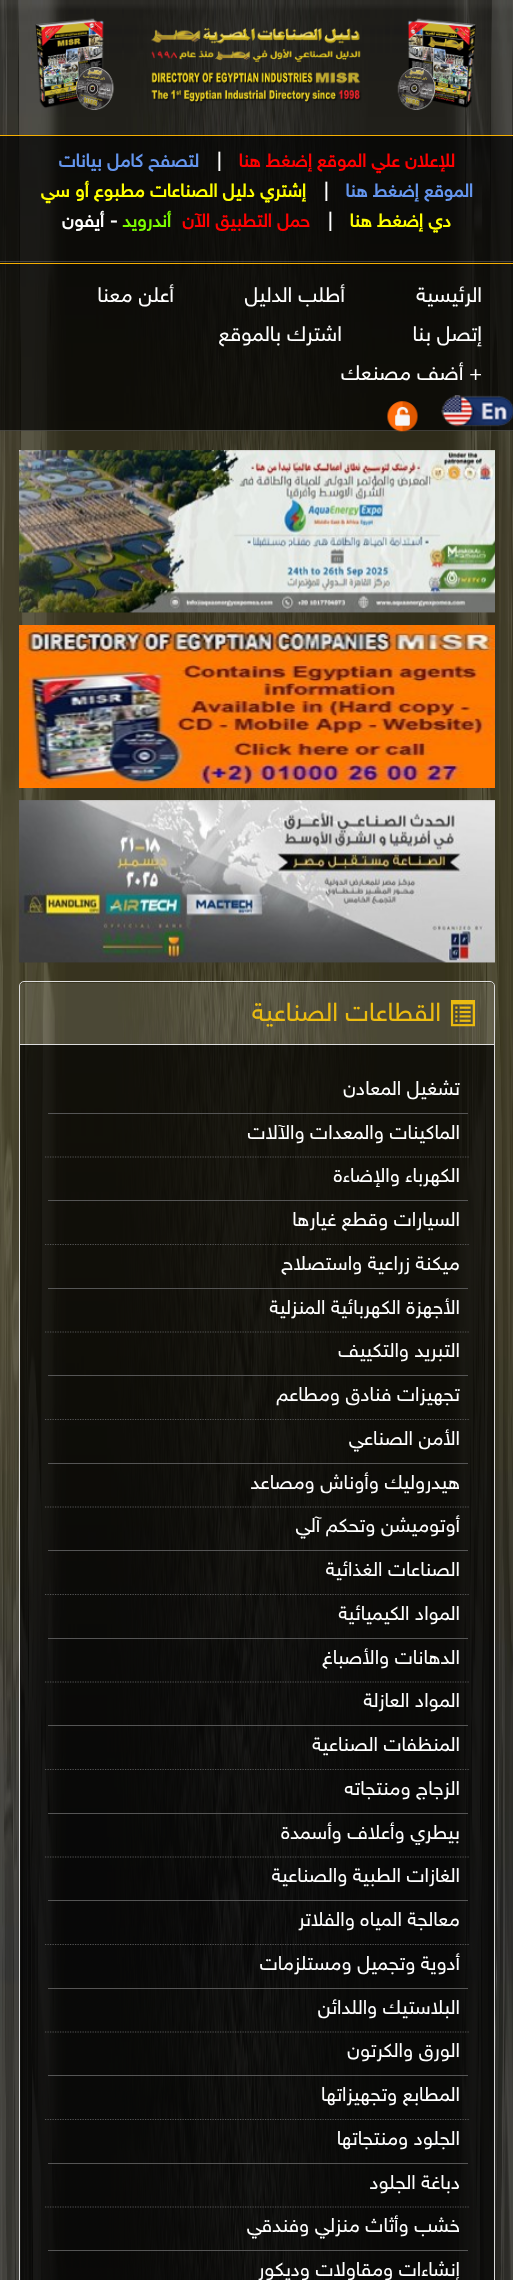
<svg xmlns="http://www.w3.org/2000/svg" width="513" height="2280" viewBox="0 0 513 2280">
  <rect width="100%" height="100%" fill="rgb(255,255,255)"/>
  <image x="0" y="0" width="513" height="2280" href="pic1.png"/>
  <image x="35" y="18" width="441" height="92" href="pic2.png"/>
  <rect x="0" y="135" width="513" height="1" fill="rgb(245,175,2)"/>
  <rect x="0" y="136" width="513" height="127" fill="rgba(0,0,0,0.68)"/>
  <rect x="0" y="261" width="513" height="1" fill="rgba(255,255,255,0.2)"/>
  <text x="455" y="167" font-family="'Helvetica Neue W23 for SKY'" font-size="18.75" font-weight="bold" direction="rtl" fill="rgb(255,0,0)">للإعلان علي الموقع إضغط هنا</text>
  <text x="217" y="167" font-family="'Helvetica Neue W23 for SKY'" font-size="18.75" font-weight="bold" fill="rgb(255,255,255)">|</text>
  <g font-family="'Helvetica Neue W23 for SKY'" font-size="18.75" font-weight="bold" direction="rtl" fill="rgb(100,149,237)">
    <text x="199" y="167">لتصفح كامل بيانات</text>
    <text x="473" y="197">الموقع إضغط هنا</text>
  </g>
  <text x="324" y="197" font-family="'Helvetica Neue W23 for SKY'" font-size="18.75" font-weight="bold" fill="rgb(255,255,255)">|</text>
  <g font-family="'Helvetica Neue W23 for SKY'" font-size="18.75" font-weight="bold" direction="rtl" fill="rgb(255,255,0)">
    <text x="306" y="197">إشتري دليل الصناعات مطبوع أو سي</text>
    <text x="451" y="227">دي إضغط هنا</text>
  </g>
  <text x="328" y="227" font-family="'Helvetica Neue W23 for SKY'" font-size="18.75" font-weight="bold" fill="rgb(255,255,255)">|</text>
  <text x="310" y="227" font-family="'Helvetica Neue W23 for SKY'" font-size="18.75" font-weight="bold" direction="rtl" fill="rgb(255,0,0)">حمل التطبيق الآن</text>
  <text x="171" y="227" font-family="'Helvetica Neue W23 for SKY'" font-size="18.75" font-weight="bold" direction="rtl" fill="rgb(124,252,0)">أندرويد</text>
  <text x="110" y="227" font-family="'Helvetica Neue W23 for SKY'" font-size="18.75" font-weight="bold" fill="rgb(255,255,255)">-</text>
  <text x="104" y="227" font-family="'Helvetica Neue W23 for SKY'" font-size="18.75" font-weight="bold" direction="rtl" fill="rgb(255,255,255)">أيفون</text>
  <rect x="0" y="263" width="513" height="1" fill="rgb(245,175,2)"/>
  <rect x="0" y="264" width="513" height="167" fill="rgba(0,0,0,0.68)"/>
  <rect x="0" y="430" width="513" height="1" fill="rgba(255,255,255,0.2)"/>
  <g font-family="'Helvetica Neue W23 for SKY'" font-size="21.25" direction="rtl" fill="rgb(255,255,255)">
    <text x="482" y="302">الرئيسية</text>
    <text x="345" y="302">أطلب الدليل</text>
    <text x="174" y="302">أعلن معنا</text>
    <text x="482" y="341">إتصل بنا</text>
    <text x="342" y="341">اشترك بالموقع</text>
    <text x="482" y="380">+ أضف مصنعك</text>
  </g>
  <image x="441" y="395" width="72" height="32" href="pic3.png"/>
  <image x="387" y="401" width="31" height="31" href="pic4.png"/>
  <image x="19" y="450" width="476" height="163" href="pic5.png"/>
  <image x="19" y="625" width="476" height="163" href="pic6.png"/>
  <image x="19" y="800" width="476" height="163" href="pic7.png"/>
  <rect x="19.5" y="981.5" width="475" height="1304" rx="4.5" fill="none" stroke="rgb(221,221,221)"/>
  <path d="M24 983H490C492 983 494 985 494 987V1045H20V987C20 985 22 983 24 983Z" fill="rgba(245,245,245,0.11)"/>
  <rect x="20" y="1044" width="474" height="1" fill="rgb(221,221,221)"/>
  <image x="450" y="1000" width="25" height="27" href="pic8.png"/>
  <text x="441" y="1021" font-family="'Helvetica Neue W23 for SKY'" font-size="26.25" direction="rtl" fill="rgb(235,187,16)">القطاعات الصناعية</text>
  <rect x="20" y="1045" width="474" height="1235" fill="rgba(0,0,0,0.68)"/>
  <rect x="48" y="1113" width="420" height="1" fill="rgb(85,85,85)"/>
  <text x="460" y="1095" font-family="'Helvetica Neue W23 for SKY'" font-size="20" direction="rtl" fill="rgb(255,255,255)">تشغيل المعادن</text>
  <path d="M45 1157H469" fill="none" stroke="rgb(85,85,85)" stroke-width="1.2" stroke-dasharray="1.25 1.25"/>
  <text x="460" y="1139" font-family="'Helvetica Neue W23 for SKY'" font-size="20" direction="rtl" fill="rgb(255,255,255)">الماكينات والمعدات والآلات</text>
  <rect x="48" y="1200" width="420" height="1" fill="rgb(85,85,85)"/>
  <text x="460" y="1182" font-family="'Helvetica Neue W23 for SKY'" font-size="20" direction="rtl" fill="rgb(255,255,255)">الكهرباء والإضاءة</text>
  <path d="M45 1244.5H469" fill="none" stroke="rgb(85,85,85)" stroke-width="1.2" stroke-dasharray="1.25 1.25"/>
  <text x="460" y="1226" font-family="'Helvetica Neue W23 for SKY'" font-size="20" direction="rtl" fill="rgb(255,255,255)">السيارات وقطع غيارها</text>
  <rect x="48" y="1288" width="420" height="1" fill="rgb(85,85,85)"/>
  <text x="460" y="1270" font-family="'Helvetica Neue W23 for SKY'" font-size="20" direction="rtl" fill="rgb(255,255,255)">ميكنة زراعية واستصلاح</text>
  <path d="M45 1332H469" fill="none" stroke="rgb(85,85,85)" stroke-width="1.2" stroke-dasharray="1.25 1.25"/>
  <text x="460" y="1314" font-family="'Helvetica Neue W23 for SKY'" font-size="20" direction="rtl" fill="rgb(255,255,255)">الأجهزة الكهربائية المنزلية</text>
  <rect x="48" y="1375" width="420" height="1" fill="rgb(85,85,85)"/>
  <text x="460" y="1357" font-family="'Helvetica Neue W23 for SKY'" font-size="20" direction="rtl" fill="rgb(255,255,255)">التبريد والتكييف</text>
  <path d="M45 1419.5H469" fill="none" stroke="rgb(85,85,85)" stroke-width="1.2" stroke-dasharray="1.25 1.25"/>
  <text x="460" y="1401" font-family="'Helvetica Neue W23 for SKY'" font-size="20" direction="rtl" fill="rgb(255,255,255)">تجهيزات فنادق ومطاعم</text>
  <rect x="48" y="1463" width="420" height="1" fill="rgb(85,85,85)"/>
  <text x="460" y="1445" font-family="'Helvetica Neue W23 for SKY'" font-size="20" direction="rtl" fill="rgb(255,255,255)">الأمن الصناعي</text>
  <path d="M45 1507H469" fill="none" stroke="rgb(85,85,85)" stroke-width="1.2" stroke-dasharray="1.25 1.25"/>
  <text x="460" y="1489" font-family="'Helvetica Neue W23 for SKY'" font-size="20" direction="rtl" fill="rgb(255,255,255)">هيدروليك وأوناش ومصاعد</text>
  <rect x="48" y="1550" width="420" height="1" fill="rgb(85,85,85)"/>
  <text x="460" y="1532" font-family="'Helvetica Neue W23 for SKY'" font-size="20" direction="rtl" fill="rgb(255,255,255)">أوتوميشن وتحكم آلي</text>
  <path d="M45 1594.5H469" fill="none" stroke="rgb(85,85,85)" stroke-width="1.2" stroke-dasharray="1.25 1.25"/>
  <text x="460" y="1576" font-family="'Helvetica Neue W23 for SKY'" font-size="20" direction="rtl" fill="rgb(255,255,255)">الصناعات الغذائية</text>
  <rect x="48" y="1638" width="420" height="1" fill="rgb(85,85,85)"/>
  <text x="460" y="1620" font-family="'Helvetica Neue W23 for SKY'" font-size="20" direction="rtl" fill="rgb(255,255,255)">المواد الكيميائية</text>
  <path d="M45 1682H469" fill="none" stroke="rgb(85,85,85)" stroke-width="1.2" stroke-dasharray="1.25 1.25"/>
  <text x="460" y="1664" font-family="'Helvetica Neue W23 for SKY'" font-size="20" direction="rtl" fill="rgb(255,255,255)">الدهانات والأصباغ</text>
  <rect x="48" y="1725" width="420" height="1" fill="rgb(85,85,85)"/>
  <text x="460" y="1707" font-family="'Helvetica Neue W23 for SKY'" font-size="20" direction="rtl" fill="rgb(255,255,255)">المواد العازلة</text>
  <path d="M45 1769.5H469" fill="none" stroke="rgb(85,85,85)" stroke-width="1.2" stroke-dasharray="1.25 1.25"/>
  <text x="460" y="1751" font-family="'Helvetica Neue W23 for SKY'" font-size="20" direction="rtl" fill="rgb(255,255,255)">المنظفات الصناعية</text>
  <rect x="48" y="1813" width="420" height="1" fill="rgb(85,85,85)"/>
  <text x="460" y="1795" font-family="'Helvetica Neue W23 for SKY'" font-size="20" direction="rtl" fill="rgb(255,255,255)">الزجاج ومنتجاته</text>
  <path d="M45 1857H469" fill="none" stroke="rgb(85,85,85)" stroke-width="1.2" stroke-dasharray="1.25 1.25"/>
  <text x="460" y="1839" font-family="'Helvetica Neue W23 for SKY'" font-size="20" direction="rtl" fill="rgb(255,255,255)">بيطري وأعلاف وأسمدة</text>
  <rect x="48" y="1900" width="420" height="1" fill="rgb(85,85,85)"/>
  <text x="460" y="1882" font-family="'Helvetica Neue W23 for SKY'" font-size="20" direction="rtl" fill="rgb(255,255,255)">الغازات الطبية والصناعية</text>
  <path d="M45 1944.5H469" fill="none" stroke="rgb(85,85,85)" stroke-width="1.2" stroke-dasharray="1.25 1.25"/>
  <text x="460" y="1926" font-family="'Helvetica Neue W23 for SKY'" font-size="20" direction="rtl" fill="rgb(255,255,255)">معالجة المياه والفلاتر</text>
  <rect x="48" y="1988" width="420" height="1" fill="rgb(85,85,85)"/>
  <text x="460" y="1970" font-family="'Helvetica Neue W23 for SKY'" font-size="20" direction="rtl" fill="rgb(255,255,255)">أدوية وتجميل ومستلزمات</text>
  <path d="M45 2032H469" fill="none" stroke="rgb(85,85,85)" stroke-width="1.2" stroke-dasharray="1.25 1.25"/>
  <text x="460" y="2014" font-family="'Helvetica Neue W23 for SKY'" font-size="20" direction="rtl" fill="rgb(255,255,255)">البلاستيك واللدائن</text>
  <rect x="48" y="2075" width="420" height="1" fill="rgb(85,85,85)"/>
  <text x="460" y="2057" font-family="'Helvetica Neue W23 for SKY'" font-size="20" direction="rtl" fill="rgb(255,255,255)">الورق والكرتون</text>
  <path d="M45 2119.5H469" fill="none" stroke="rgb(85,85,85)" stroke-width="1.2" stroke-dasharray="1.25 1.25"/>
  <text x="460" y="2101" font-family="'Helvetica Neue W23 for SKY'" font-size="20" direction="rtl" fill="rgb(255,255,255)">المطابع وتجهيزاتها</text>
  <rect x="48" y="2163" width="420" height="1" fill="rgb(85,85,85)"/>
  <text x="460" y="2145" font-family="'Helvetica Neue W23 for SKY'" font-size="20" direction="rtl" fill="rgb(255,255,255)">الجلود ومنتجاتها</text>
  <path d="M45 2207H469" fill="none" stroke="rgb(85,85,85)" stroke-width="1.2" stroke-dasharray="1.25 1.25"/>
  <text x="460" y="2189" font-family="'Helvetica Neue W23 for SKY'" font-size="20" direction="rtl" fill="rgb(255,255,255)">دباغة الجلود</text>
  <rect x="48" y="2250" width="420" height="1" fill="rgb(85,85,85)"/>
  <g font-family="'Helvetica Neue W23 for SKY'" font-size="20" direction="rtl" fill="rgb(255,255,255)">
    <text x="460" y="2232">خشب وأثاث منزلي وفندقي</text>
    <text x="460" y="2276">إنشاءات ومقاولات وديكور</text>
  </g>
</svg>
